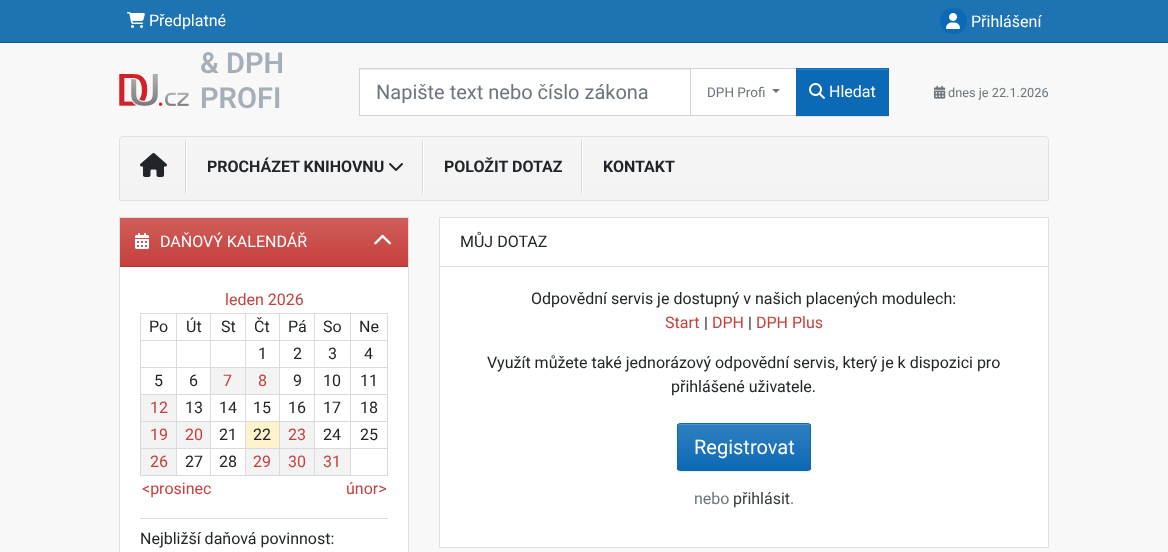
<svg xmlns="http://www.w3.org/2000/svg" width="1168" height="552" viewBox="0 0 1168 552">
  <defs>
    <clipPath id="clip1"><path d="M123 136H1045C1047 136 1049 138 1049 140V201H119V140C119 138 121 136 123 136Z"/></clipPath>
    <linearGradient id="g1" gradientUnits="userSpaceOnUse" x1="584" y1="137" x2="584" y2="200"><stop offset="0" stop-color="rgb(245,245,245)"/><stop offset="1" stop-color="rgb(243,243,243)"/></linearGradient>
    <linearGradient id="g2" gradientUnits="userSpaceOnUse" x1="264" y1="218" x2="264" y2="266"><stop offset="0" stop-color="rgb(207,93,90)"/><stop offset="1" stop-color="rgb(198,64,61)"/></linearGradient>
    <clipPath id="clip2"><rect x="677" y="423" width="134" height="48" rx="3"/></clipPath>
    <linearGradient id="g3" gradientUnits="userSpaceOnUse" x1="744" y1="424" x2="744" y2="470"><stop offset="0" stop-color="rgb(48,128,192)"/><stop offset="1" stop-color="rgb(12,105,181)"/></linearGradient>
  </defs>
  <rect width="100%" height="100%" fill="rgb(248,248,248)"/>
  <rect x="0" y="0" width="1168" height="42" fill="rgb(30,116,178)"/>
  <rect x="0" y="42" width="1168" height="1" fill="rgb(23,88,134)"/>
  <image x="127" y="12" width="18" height="16" href="pic1.png"/>
  <text x="149" y="26" font-family="Roboto" font-size="16" fill="rgb(255,255,255)">Předplatné</text>
  <rect x="940" y="8" width="27" height="26" rx="13" fill="rgb(12,105,181)"/>
  <image x="946" y="13" width="14" height="16" href="pic2.png"/>
  <text x="971" y="27" font-family="Roboto" font-size="16" fill="rgb(255,255,255)">Přihlášení</text>
  <image x="119" y="74" width="70" height="32" href="pic3.png"/>
  <g font-family="Roboto" font-size="29" font-weight="600" fill="rgb(164,175,185)">
    <text>
      <tspan x="200" y="73">&amp; DPH</tspan>
      <tspan x="200" y="108">PROFI</tspan>
    </text>
  </g>
  <rect x="360" y="70" width="330" height="45" fill="rgb(255,255,255)"/>
  <rect x="360" y="69" width="330" height="1" fill="rgb(236,236,236)"/>
  <rect x="359.5" y="68.5" width="331" height="47" fill="none" stroke="rgb(206,212,218)"/>
  <text x="376" y="99" font-family="Roboto" font-size="20" fill="rgb(108,117,125)">Napište text nebo číslo zákona</text>
  <rect x="690.5" y="68.5" width="106" height="47" fill="rgb(255,255,255)" stroke="rgb(206,212,218)"/>
  <text x="707" y="97" font-family="Roboto" font-size="13.5" fill="rgb(108,117,125)">DPH Profi</text>
  <path d="M772 89H780L776 93Z" fill="rgb(108,117,125)"/>
  <rect x="796" y="69" width="93" height="48" fill="rgba(0,0,0,0.07)" filter="blur(0.5px)"/>
  <rect x="796" y="68" width="93" height="48" fill="rgb(12,105,181)"/>
  <rect x="797" y="69" width="91" height="1" fill="rgb(48,128,192)"/>
  <image x="809" y="83" width="16" height="16" href="pic4.png"/>
  <text x="829" y="97" font-family="Roboto" font-size="16" fill="rgb(255,255,255)">Hledat</text>
  <image x="934" y="85" width="12" height="14" href="pic5.png"/>
  <text x="948" y="97" font-family="Roboto" font-size="12.75" fill="rgb(108,117,125)">dnes je 22.1.2026</text>
  <g clip-path="url(#clip1)">
    <rect x="119" y="137" width="930" height="63" fill="url(#g1)"/>
  </g>
  <path d="M123 136.5H1045C1047 136.5 1048.5 138 1048.5 140V200.5H119.5V140C119.5 138 121 136.5 123 136.5Z" fill="none" stroke="rgb(222,226,230)"/>
  <image x="140" y="153" width="27" height="24" href="pic6.png"/>
  <rect x="186" y="140" width="1" height="54" fill="rgb(255,255,255)"/>
  <rect x="185" y="140" width="1" height="54" fill="rgb(218,218,218)"/>
  <text x="207" y="172" font-family="Roboto" font-size="16" font-weight="bold" fill="rgb(33,37,41)">PROCHÁZET KNIHOVNU</text>
  <image x="389" y="163" width="14" height="8" href="pic7.png"/>
  <rect x="423" y="140" width="1" height="54" fill="rgb(255,255,255)"/>
  <rect x="422" y="140" width="1" height="54" fill="rgb(218,218,218)"/>
  <text x="444" y="172" font-family="Roboto" font-size="16" font-weight="bold" fill="rgb(33,37,41)">POLOŽIT DOTAZ</text>
  <rect x="582" y="140" width="1" height="54" fill="rgb(255,255,255)"/>
  <rect x="581" y="140" width="1" height="54" fill="rgb(218,218,218)"/>
  <text x="603" y="172" font-family="Roboto" font-size="16" font-weight="bold" fill="rgb(33,37,41)">KONTAKT</text>
  <rect x="120" y="267" width="288" height="285" fill="rgb(255,255,255)"/>
  <rect x="119.5" y="217.5" width="289" height="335" fill="none" stroke="rgb(223,223,223)"/>
  <rect x="120" y="218" width="288" height="48" fill="url(#g2)"/>
  <rect x="120" y="266" width="288" height="1" fill="rgb(173,56,53)"/>
  <image x="135" y="233" width="14" height="16" href="pic8.png"/>
  <text x="160" y="247" font-family="Roboto" font-size="16" fill="rgb(255,255,255)">DAŇOVÝ KALENDÁŘ</text>
  <image x="374" y="234" width="17" height="11" href="pic9.png"/>
  <text x="225" y="305" font-family="Roboto" font-size="16" fill="rgb(198,64,61)">leden 2026</text>
  <rect x="350" y="313" width="38" height="1" fill="rgb(218,218,218)"/>
  <rect x="350" y="340" width="38" height="1" fill="rgb(218,218,218)"/>
  <rect x="350" y="367" width="38" height="1" fill="rgb(218,218,218)"/>
  <rect x="350" y="394" width="38" height="1" fill="rgb(218,218,218)"/>
  <rect x="350" y="421" width="38" height="1" fill="rgb(218,218,218)"/>
  <rect x="350" y="448" width="38" height="1" fill="rgb(218,218,218)"/>
  <rect x="387" y="448" width="1" height="28" fill="rgb(218,218,218)"/>
  <rect x="350" y="475" width="38" height="1" fill="rgb(218,218,218)"/>
  <rect x="350" y="448" width="1" height="28" fill="rgb(218,218,218)"/>
  <rect x="314" y="448" width="37" height="1" fill="rgb(218,218,218)"/>
  <rect x="350" y="421" width="1" height="28" fill="rgb(218,218,218)"/>
  <rect x="314" y="421" width="37" height="1" fill="rgb(218,218,218)"/>
  <rect x="350" y="394" width="1" height="28" fill="rgb(218,218,218)"/>
  <rect x="314" y="394" width="37" height="1" fill="rgb(218,218,218)"/>
  <rect x="350" y="367" width="1" height="28" fill="rgb(218,218,218)"/>
  <rect x="314" y="367" width="37" height="1" fill="rgb(218,218,218)"/>
  <rect x="350" y="340" width="1" height="28" fill="rgb(218,218,218)"/>
  <rect x="314" y="340" width="37" height="1" fill="rgb(218,218,218)"/>
  <rect x="350" y="313" width="1" height="28" fill="rgb(218,218,218)"/>
  <rect x="314" y="313" width="37" height="1" fill="rgb(218,218,218)"/>
  <rect x="314" y="475" width="37" height="1" fill="rgb(218,218,218)"/>
  <rect x="314" y="448" width="1" height="28" fill="rgb(218,218,218)"/>
  <rect x="279" y="448" width="36" height="1" fill="rgb(218,218,218)"/>
  <rect x="314" y="421" width="1" height="28" fill="rgb(218,218,218)"/>
  <rect x="279" y="421" width="36" height="1" fill="rgb(218,218,218)"/>
  <rect x="314" y="394" width="1" height="28" fill="rgb(218,218,218)"/>
  <rect x="279" y="394" width="36" height="1" fill="rgb(218,218,218)"/>
  <rect x="314" y="367" width="1" height="28" fill="rgb(218,218,218)"/>
  <rect x="279" y="367" width="36" height="1" fill="rgb(218,218,218)"/>
  <rect x="314" y="340" width="1" height="28" fill="rgb(218,218,218)"/>
  <rect x="279" y="340" width="36" height="1" fill="rgb(218,218,218)"/>
  <rect x="314" y="313" width="1" height="28" fill="rgb(218,218,218)"/>
  <rect x="279" y="313" width="36" height="1" fill="rgb(218,218,218)"/>
  <rect x="279" y="475" width="36" height="1" fill="rgb(218,218,218)"/>
  <rect x="279" y="448" width="1" height="28" fill="rgb(218,218,218)"/>
  <rect x="245" y="448" width="35" height="1" fill="rgb(218,218,218)"/>
  <rect x="279" y="421" width="1" height="28" fill="rgb(218,218,218)"/>
  <rect x="245" y="421" width="35" height="1" fill="rgb(218,218,218)"/>
  <rect x="279" y="394" width="1" height="28" fill="rgb(218,218,218)"/>
  <rect x="245" y="394" width="35" height="1" fill="rgb(218,218,218)"/>
  <rect x="279" y="367" width="1" height="28" fill="rgb(218,218,218)"/>
  <rect x="245" y="367" width="35" height="1" fill="rgb(218,218,218)"/>
  <rect x="279" y="340" width="1" height="28" fill="rgb(218,218,218)"/>
  <rect x="245" y="340" width="35" height="1" fill="rgb(218,218,218)"/>
  <rect x="279" y="313" width="1" height="28" fill="rgb(218,218,218)"/>
  <rect x="245" y="313" width="35" height="1" fill="rgb(218,218,218)"/>
  <rect x="245" y="475" width="35" height="1" fill="rgb(218,218,218)"/>
  <rect x="245" y="448" width="1" height="28" fill="rgb(218,218,218)"/>
  <rect x="210" y="448" width="36" height="1" fill="rgb(218,218,218)"/>
  <rect x="245" y="421" width="1" height="28" fill="rgb(218,218,218)"/>
  <rect x="210" y="421" width="36" height="1" fill="rgb(218,218,218)"/>
  <rect x="245" y="394" width="1" height="28" fill="rgb(218,218,218)"/>
  <rect x="210" y="394" width="36" height="1" fill="rgb(218,218,218)"/>
  <rect x="245" y="367" width="1" height="28" fill="rgb(218,218,218)"/>
  <rect x="210" y="367" width="36" height="1" fill="rgb(218,218,218)"/>
  <rect x="245" y="340" width="1" height="28" fill="rgb(218,218,218)"/>
  <rect x="210" y="340" width="36" height="1" fill="rgb(218,218,218)"/>
  <rect x="245" y="313" width="1" height="28" fill="rgb(218,218,218)"/>
  <rect x="210" y="313" width="36" height="1" fill="rgb(218,218,218)"/>
  <rect x="210" y="475" width="36" height="1" fill="rgb(218,218,218)"/>
  <rect x="210" y="448" width="1" height="28" fill="rgb(218,218,218)"/>
  <rect x="176" y="448" width="35" height="1" fill="rgb(218,218,218)"/>
  <rect x="210" y="421" width="1" height="28" fill="rgb(218,218,218)"/>
  <rect x="176" y="421" width="35" height="1" fill="rgb(218,218,218)"/>
  <rect x="210" y="394" width="1" height="28" fill="rgb(218,218,218)"/>
  <rect x="176" y="394" width="35" height="1" fill="rgb(218,218,218)"/>
  <rect x="210" y="367" width="1" height="28" fill="rgb(218,218,218)"/>
  <rect x="176" y="367" width="35" height="1" fill="rgb(218,218,218)"/>
  <rect x="210" y="340" width="1" height="28" fill="rgb(218,218,218)"/>
  <rect x="176" y="340" width="35" height="1" fill="rgb(218,218,218)"/>
  <rect x="210" y="313" width="1" height="28" fill="rgb(218,218,218)"/>
  <rect x="176" y="313" width="35" height="1" fill="rgb(218,218,218)"/>
  <rect x="176" y="475" width="35" height="1" fill="rgb(218,218,218)"/>
  <rect x="176" y="448" width="1" height="28" fill="rgb(218,218,218)"/>
  <rect x="140" y="448" width="37" height="1" fill="rgb(218,218,218)"/>
  <rect x="176" y="421" width="1" height="28" fill="rgb(218,218,218)"/>
  <rect x="140" y="421" width="37" height="1" fill="rgb(218,218,218)"/>
  <rect x="176" y="394" width="1" height="28" fill="rgb(218,218,218)"/>
  <rect x="140" y="394" width="37" height="1" fill="rgb(218,218,218)"/>
  <rect x="176" y="367" width="1" height="28" fill="rgb(218,218,218)"/>
  <rect x="140" y="367" width="37" height="1" fill="rgb(218,218,218)"/>
  <rect x="176" y="340" width="1" height="28" fill="rgb(218,218,218)"/>
  <rect x="140" y="340" width="37" height="1" fill="rgb(218,218,218)"/>
  <rect x="176" y="313" width="1" height="28" fill="rgb(218,218,218)"/>
  <rect x="140" y="313" width="37" height="1" fill="rgb(218,218,218)"/>
  <rect x="140" y="475" width="37" height="1" fill="rgb(218,218,218)"/>
  <rect x="140" y="448" width="1" height="28" fill="rgb(218,218,218)"/>
  <rect x="140" y="421" width="1" height="28" fill="rgb(218,218,218)"/>
  <rect x="140" y="394" width="1" height="28" fill="rgb(218,218,218)"/>
  <rect x="140" y="367" width="1" height="28" fill="rgb(218,218,218)"/>
  <rect x="140" y="340" width="1" height="28" fill="rgb(218,218,218)"/>
  <rect x="140" y="313" width="1" height="28" fill="rgb(218,218,218)"/>
  <g font-family="Roboto" font-size="16" fill="rgb(33,37,41)">
    <text x="149" y="332">Po</text>
    <text x="186" y="332">Út</text>
    <text x="221" y="332">St</text>
    <text x="254" y="332">Čt</text>
    <text x="288" y="332">Pá</text>
    <text x="323" y="332">So</text>
  </g>
  <rect x="387" y="421" width="1" height="28" fill="rgb(218,218,218)"/>
  <rect x="387" y="394" width="1" height="28" fill="rgb(218,218,218)"/>
  <rect x="387" y="367" width="1" height="28" fill="rgb(218,218,218)"/>
  <rect x="387" y="340" width="1" height="28" fill="rgb(218,218,218)"/>
  <rect x="387" y="313" width="1" height="28" fill="rgb(218,218,218)"/>
  <g font-family="Roboto" font-size="16" fill="rgb(33,37,41)">
    <text x="359" y="332">Ne</text>
    <text x="258" y="359">1</text>
    <text x="293" y="359">2</text>
    <text x="328" y="359">3</text>
    <text x="364" y="359">4</text>
    <text x="154" y="386">5</text>
    <text x="189" y="386">6</text>
  </g>
  <rect x="211" y="368" width="34" height="26" fill="rgb(243,243,243)"/>
  <text x="223" y="386" font-family="Roboto" font-size="16" fill="rgb(198,64,61)">7</text>
  <rect x="246" y="368" width="33" height="26" fill="rgb(243,243,243)"/>
  <text x="258" y="386" font-family="Roboto" font-size="16" fill="rgb(198,64,61)">8</text>
  <g font-family="Roboto" font-size="16" fill="rgb(33,37,41)">
    <text x="293" y="386">9</text>
    <text x="323" y="386">10</text>
    <text x="360" y="386">11</text>
  </g>
  <rect x="141" y="395" width="35" height="26" fill="rgb(243,243,243)"/>
  <text x="150" y="413" font-family="Roboto" font-size="16" fill="rgb(198,64,61)">12</text>
  <g font-family="Roboto" font-size="16" fill="rgb(33,37,41)">
    <text x="185" y="413">13</text>
    <text x="219" y="413">14</text>
    <text x="253" y="413">15</text>
    <text x="288" y="413">16</text>
    <text x="323" y="413">17</text>
    <text x="360" y="413">18</text>
  </g>
  <rect x="141" y="422" width="35" height="26" fill="rgb(243,243,243)"/>
  <text x="150" y="440" font-family="Roboto" font-size="16" fill="rgb(198,64,61)">19</text>
  <rect x="177" y="422" width="33" height="26" fill="rgb(243,243,243)"/>
  <text x="185" y="440" font-family="Roboto" font-size="16" fill="rgb(198,64,61)">20</text>
  <text x="219" y="440" font-family="Roboto" font-size="16" fill="rgb(33,37,41)">21</text>
  <rect x="246" y="422" width="33" height="26" fill="rgb(255,243,205)"/>
  <text x="253" y="440" font-family="Roboto" font-size="16" fill="rgb(33,37,41)">22</text>
  <rect x="280" y="422" width="34" height="26" fill="rgb(243,243,243)"/>
  <text x="288" y="440" font-family="Roboto" font-size="16" fill="rgb(198,64,61)">23</text>
  <g font-family="Roboto" font-size="16" fill="rgb(33,37,41)">
    <text x="323" y="440">24</text>
    <text x="360" y="440">25</text>
  </g>
  <rect x="141" y="449" width="35" height="26" fill="rgb(243,243,243)"/>
  <text x="150" y="467" font-family="Roboto" font-size="16" fill="rgb(198,64,61)">26</text>
  <g font-family="Roboto" font-size="16" fill="rgb(33,37,41)">
    <text x="185" y="467">27</text>
    <text x="219" y="467">28</text>
  </g>
  <rect x="246" y="449" width="33" height="26" fill="rgb(243,243,243)"/>
  <text x="253" y="467" font-family="Roboto" font-size="16" fill="rgb(198,64,61)">29</text>
  <rect x="280" y="449" width="34" height="26" fill="rgb(243,243,243)"/>
  <text x="288" y="467" font-family="Roboto" font-size="16" fill="rgb(198,64,61)">30</text>
  <rect x="315" y="449" width="35" height="26" fill="rgb(243,243,243)"/>
  <g font-family="Roboto" font-size="16" fill="rgb(198,64,61)">
    <text x="323" y="467">31</text>
    <text x="142" y="494">&lt;prosinec</text>
    <text x="346" y="494">únor&gt;</text>
  </g>
  <rect x="140" y="518" width="248" height="1" fill="rgb(218,218,218)"/>
  <text x="140" y="544" font-family="Roboto" font-size="16" fill="rgb(33,37,41)">Nejbližší daňová povinnost:</text>
  <rect x="439.5" y="217.5" width="609" height="330" fill="rgb(255,255,255)" stroke="rgb(223,223,223)"/>
  <rect x="440" y="266" width="608" height="1" fill="rgb(223,223,223)"/>
  <g font-family="Roboto" font-size="16" fill="rgb(33,37,41)">
    <text x="460" y="247">MŮJ DOTAZ</text>
    <text x="531" y="304">Odpovědní servis je dostupný v našich placených modulech:</text>
  </g>
  <text x="665" y="328" font-family="Roboto" font-size="16" fill="rgb(198,64,61)">Start</text>
  <text x="704" y="328" font-family="Roboto" font-size="16" fill="rgb(33,37,41)">|</text>
  <text x="712" y="328" font-family="Roboto" font-size="16" fill="rgb(198,64,61)">DPH</text>
  <text x="748" y="328" font-family="Roboto" font-size="16" fill="rgb(33,37,41)">|</text>
  <text x="756" y="328" font-family="Roboto" font-size="16" fill="rgb(198,64,61)">DPH Plus</text>
  <g font-family="Roboto" font-size="16" fill="rgb(33,37,41)">
    <text x="487" y="368">Využít můžete také jednorázový odpovědní servis, který je k dispozici pro</text>
    <text x="671" y="392">přihlášené uživatele.</text>
  </g>
  <rect x="677" y="424" width="134" height="48" rx="3" fill="rgba(0,0,0,0.07)" filter="blur(0.5px)"/>
  <g clip-path="url(#clip2)">
    <rect x="677" y="424" width="134" height="46" fill="url(#g3)"/>
  </g>
  <path d="M680 425H808C809 425 810 426 810 427C810 426 810 424 808 424H680C678 424 678 426 678 427C678 426 679 425 680 425Z" fill="rgb(79,147,201)"/>
  <rect x="677.5" y="423.5" width="133" height="47" rx="2.5" fill="none" stroke="rgb(12,105,181)"/>
  <text x="694" y="454" font-family="Roboto" font-size="20" fill="rgb(255,255,255)">Registrovat</text>
  <text x="694" y="504" font-family="Roboto" font-size="16" fill="rgb(108,117,125)">nebo</text>
  <text x="733" y="504" font-family="Roboto" font-size="16" fill="rgb(52,58,64)">přihlásit</text>
  <text x="790" y="504" font-family="Roboto" font-size="16" fill="rgb(108,117,125)">.</text>
</svg>
